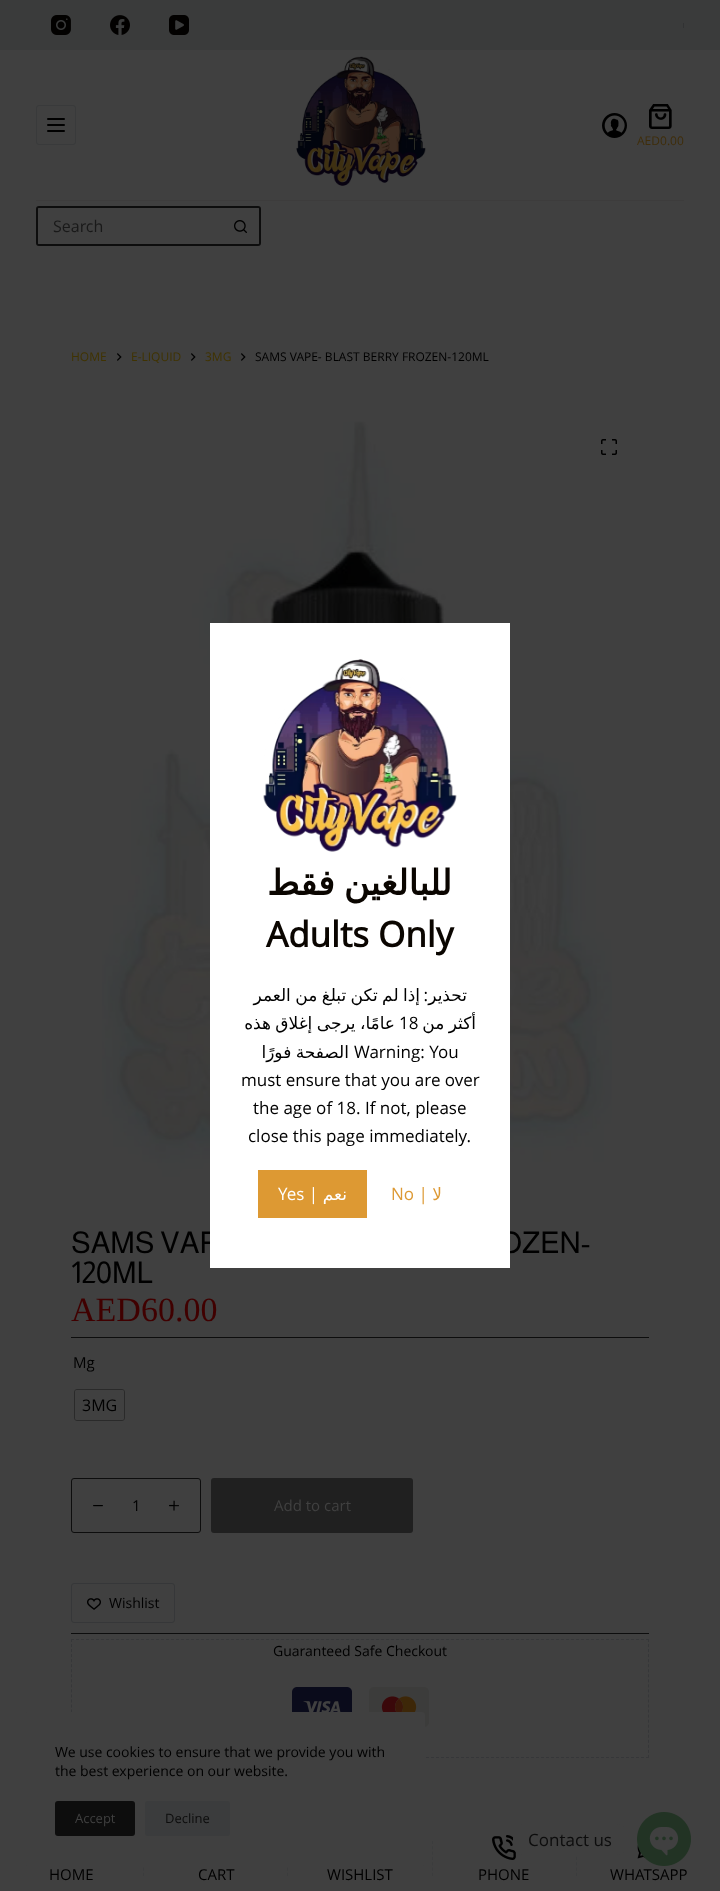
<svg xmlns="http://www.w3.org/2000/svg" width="720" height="1891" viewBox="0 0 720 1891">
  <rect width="100%" height="100%" fill="rgb(64,64,64)"/>
  <rect x="0" y="0" width="720" height="50" fill="rgb(58,59,59)"/>
  <image x="51" y="15" width="20" height="20" href="pic1.png"/>
  <image x="110" y="15" width="20" height="20" href="pic2.png"/>
  <image x="169" y="15" width="20" height="20" href="pic3.png"/>
  <rect x="683" y="23" width="1" height="5" fill="rgb(49,50,51)"/>
  <rect x="36.5" y="105.5" width="39" height="39" rx="2.5" fill="none" stroke="rgb(57,58,59)"/>
  <rect x="47" y="118" width="18" height="2" rx="1" fill="rgb(0,0,0)"/>
  <rect x="47" y="124" width="18" height="2" rx="1" fill="rgb(0,0,0)"/>
  <rect x="47" y="130" width="18" height="2" rx="1" fill="rgb(0,0,0)"/>
  <image x="296" y="56" width="130" height="130" href="pic4.png"/>
  <image x="602" y="113" width="25" height="25" href="pic5.png"/>
  <image x="649" y="104" width="23" height="25" href="pic6.png"/>
  <text x="637" y="145" font-family="Open Sans" font-size="12" fill="rgb(63,45,9)">AED0.00</text>
  <rect x="36" y="200" width="648" height="1" fill="rgb(61,60,60)"/>
  <path d="M39 206H221V246H39C37 246 36 245 36 243V209C36 207 37 206 39 206ZM39 208H221V244H39C38 244 38 244 38 243V209C38 208 38 208 39 208Z" fill="rgb(13,13,13)" fill-rule="evenodd"/>
  <text x="53" y="232" font-family="Open Sans" font-size="16" fill="rgb(25,25,25)">Search</text>
  <path d="M221 206H258C260 206 261 207 261 209V243C261 245 260 246 258 246H221ZM221 208H258C259 208 259 208 259 209V243C259 244 259 244 258 244H221Z" fill="rgb(13,13,13)" fill-rule="evenodd"/>
  <image x="234" y="220" width="13" height="13" href="pic7.png"/>
  <text x="71" y="361" font-family="Open Sans" font-size="12" fill="rgb(64,51,1)">HOME</text>
  <image x="117" y="353" width="5" height="8" href="pic8.png"/>
  <text x="131" y="361" font-family="Open Sans" font-size="12" fill="rgb(64,51,1)">E-LIQUID</text>
  <image x="191" y="353" width="5" height="8" href="pic8.png"/>
  <text x="205" y="361" font-family="Open Sans" font-size="12" fill="rgb(64,51,1)">3MG</text>
  <image x="241" y="353" width="5" height="8" href="pic8.png"/>
  <text x="255" y="361" font-family="Open Sans" font-size="12" fill="rgb(0,0,0)">SAMS VAPE- BLAST BERRY FROZEN-120ML</text>
  <image x="102" y="421" width="510" height="756" href="pic9.png"/>
  <image x="601" y="439" width="16" height="16" href="pic10.png"/>
  <g font-family="Almarai" font-size="30" fill="rgb(0,0,0)">
    <text x="71" y="1253">SAMS VAP</text>
    <text x="499" y="1253">OZEN-</text>
    <text x="71" y="1283">120ML</text>
  </g>
  <text x="71" y="1321" font-family="Liberation Serif" font-size="34" fill="rgb(64,0,0)">AED60.00</text>
  <rect x="71" y="1337" width="578" height="1" fill="rgb(13,13,13)"/>
  <text x="73" y="1368" font-family="Open Sans" font-size="15" fill="rgb(0,0,0)">Mg</text>
  <rect x="74.5" y="1389.5" width="50" height="31" rx="2.5" fill="none" stroke="rgb(42,42,42)"/>
  <rect x="75" y="1390" width="49" height="30" rx="2" fill="rgb(64,64,64)"/>
  <text x="82" y="1411" font-family="Open Sans" font-size="16" fill="rgb(0,0,0)">3MG</text>
  <rect x="71.5" y="1478.5" width="129" height="54" rx="2.5" fill="none" stroke="rgb(13,13,13)"/>
  <image x="93" y="1505" width="10" height="2" href="pic11.png"/>
  <text x="132" y="1511" font-family="Open Sans" font-size="15" fill="rgb(0,0,0)">1</text>
  <image x="169" y="1500" width="10" height="11" href="pic12.png"/>
  <rect x="211" y="1478" width="202" height="55" rx="3" fill="rgb(32,32,32)"/>
  <text x="274" y="1511" font-family="Open Sans" font-size="15" fill="rgb(64,64,64)">Add to cart</text>
  <rect x="71.5" y="1583.5" width="103" height="39" rx="2.5" fill="none" stroke="rgb(54,55,57)"/>
  <image x="87" y="1598" width="14" height="12" href="pic13.png"/>
  <text x="109" y="1608" font-family="Open Sans" font-size="14" fill="rgb(0,0,0)">Wishlist</text>
  <rect x="71" y="1633" width="578" height="1" fill="rgb(13,13,13)"/>
  <path d="M71 1639.5H649" fill="none" stroke="rgb(54,55,57)" stroke-dasharray="3 2"/>
  <path d="M648.5 1639V1758" fill="none" stroke="rgb(54,55,57)" stroke-dasharray="3 2.04"/>
  <path d="M71 1757.5H649" fill="none" stroke="rgb(54,55,57)" stroke-dasharray="3 2"/>
  <path d="M71.5 1639V1758" fill="none" stroke="rgb(54,55,57)" stroke-dasharray="3 2.04"/>
  <text x="273" y="1656" font-family="Open Sans" font-size="14" fill="rgb(0,0,0)">Guaranteed Safe Checkout</text>
  <image x="292" y="1687" width="60" height="25" href="pic14.png"/>
  <image x="369" y="1687" width="60" height="40" href="pic15.png"/>
  <rect x="210" y="623" width="300" height="645" fill="rgb(255,255,255)"/>
  <image x="263" y="659" width="194" height="193" href="pic16.png"/>
  <text x="452" y="895" word-spacing="-2" font-family="DejaVu Sans" font-size="35" font-weight="bold" direction="rtl" fill="rgb(10,5,0)">للبالغين فقط</text>
  <text x="266" y="947" font-family="Open Sans" font-size="35" font-weight="bold" fill="rgb(10,5,0)">Adults Only</text>
  <text x="420" y="1001" word-spacing="-1" font-family="DejaVu Sans" font-size="17" direction="rtl" fill="rgb(0,0,0)">إذا لم تكن تبلغ من العمر</text>
  <text x="428" y="1001" font-family="Open Sans" font-size="17" direction="rtl" fill="rgb(0,0,0)">:</text>
  <g font-family="DejaVu Sans" font-size="17" direction="rtl" fill="rgb(0,0,0)">
    <text x="467" y="1001">تحذير</text>
    <text x="395" y="1029" word-spacing="-1">عامًا، يرجى إغلاق هذه</text>
  </g>
  <text x="399" y="1029" font-family="Open Sans" font-size="17" fill="rgb(0,0,0)">18</text>
  <g font-family="DejaVu Sans" font-size="17" direction="rtl" fill="rgb(0,0,0)">
    <text x="476" y="1029" word-spacing="-1">أكثر من</text>
    <text x="349" y="1058" word-spacing="-1">الصفحة فورًا</text>
  </g>
  <g font-family="Open Sans" font-size="17" fill="rgb(0,0,0)">
    <text x="354" y="1058">Warning: You</text>
    <text x="241" y="1086">must ensure that you are over</text>
    <text x="253" y="1114">the age of 18. If not, please</text>
    <text x="248" y="1142">close this page immediately.</text>
  </g>
  <rect x="258" y="1170" width="109" height="48" fill="rgb(221,153,51)"/>
  <text x="278" y="1200" font-family="Open Sans" font-size="17" fill="rgb(255,255,255)">Yes |</text>
  <text x="347" y="1200" font-family="DejaVu Sans" font-size="17" direction="rtl" fill="rgb(255,255,255)">نعم</text>
  <text x="391" y="1200" font-family="Open Sans" font-size="17" fill="rgb(221,153,51)">No |</text>
  <text x="442" y="1200" font-family="DejaVu Sans" font-size="17" direction="rtl" fill="rgb(221,153,51)">لا</text>
  <path d="M143.5 1841V1876" fill="none" stroke="rgb(59,60,61)" stroke-dasharray="3 2.33"/>
  <path d="M287.5 1841V1876" fill="none" stroke="rgb(59,60,61)" stroke-dasharray="3 2.33"/>
  <rect x="25" y="1712" width="400" height="154" rx="3" fill="rgb(64,64,64)"/>
  <g font-family="Open Sans" font-size="14" fill="rgb(0,0,0)">
    <text>
      <tspan x="55" y="1757">We use cookies to ensure that we provide you with</tspan>
      <tspan x="55" y="1776">the best experience on our website.</tspan>
    </text>
  </g>
  <rect x="55" y="1801" width="80" height="35" rx="3" fill="rgb(13,13,13)"/>
  <text x="75" y="1823" font-family="Open Sans" font-size="13" fill="rgb(64,64,64)">Accept</text>
  <rect x="145" y="1801" width="85" height="35" rx="3" fill="rgb(59,60,61)"/>
  <text x="165" y="1823" font-family="Open Sans" font-size="13" fill="rgb(13,13,13)">Decline</text>
  <image x="492" y="1835" width="24" height="25" href="pic18.png"/>
  <path d="M576.5 1841V1876" fill="none" stroke="rgb(59,60,61)" stroke-dasharray="3 2.33"/>
  <rect x="513" y="1824" width="114" height="31" rx="10" fill="rgb(64,64,64)"/>
  <text x="528" y="1846" font-family="Open Sans" font-size="17" fill="rgb(13,13,13)">Contact us</text>
  <image x="637" y="1845" width="8" height="14" href="pic19.png"/>
  <image x="637" y="1812" width="54" height="54" href="pic17.png"/>
  <g font-family="Open Sans" font-size="15" fill="rgb(0,0,0)">
    <text x="49" y="1880">HOME</text>
    <text x="198" y="1880">CART</text>
    <text x="327" y="1880">WISHLIST</text>
  </g>
  <path d="M432.5 1841V1876" fill="none" stroke="rgb(59,60,61)" stroke-dasharray="3 2.33"/>
  <g font-family="Open Sans" font-size="15" fill="rgb(0,0,0)">
    <text x="478" y="1880">PHONE</text>
    <text x="610" y="1880">WHATSAPP</text>
  </g>
</svg>
